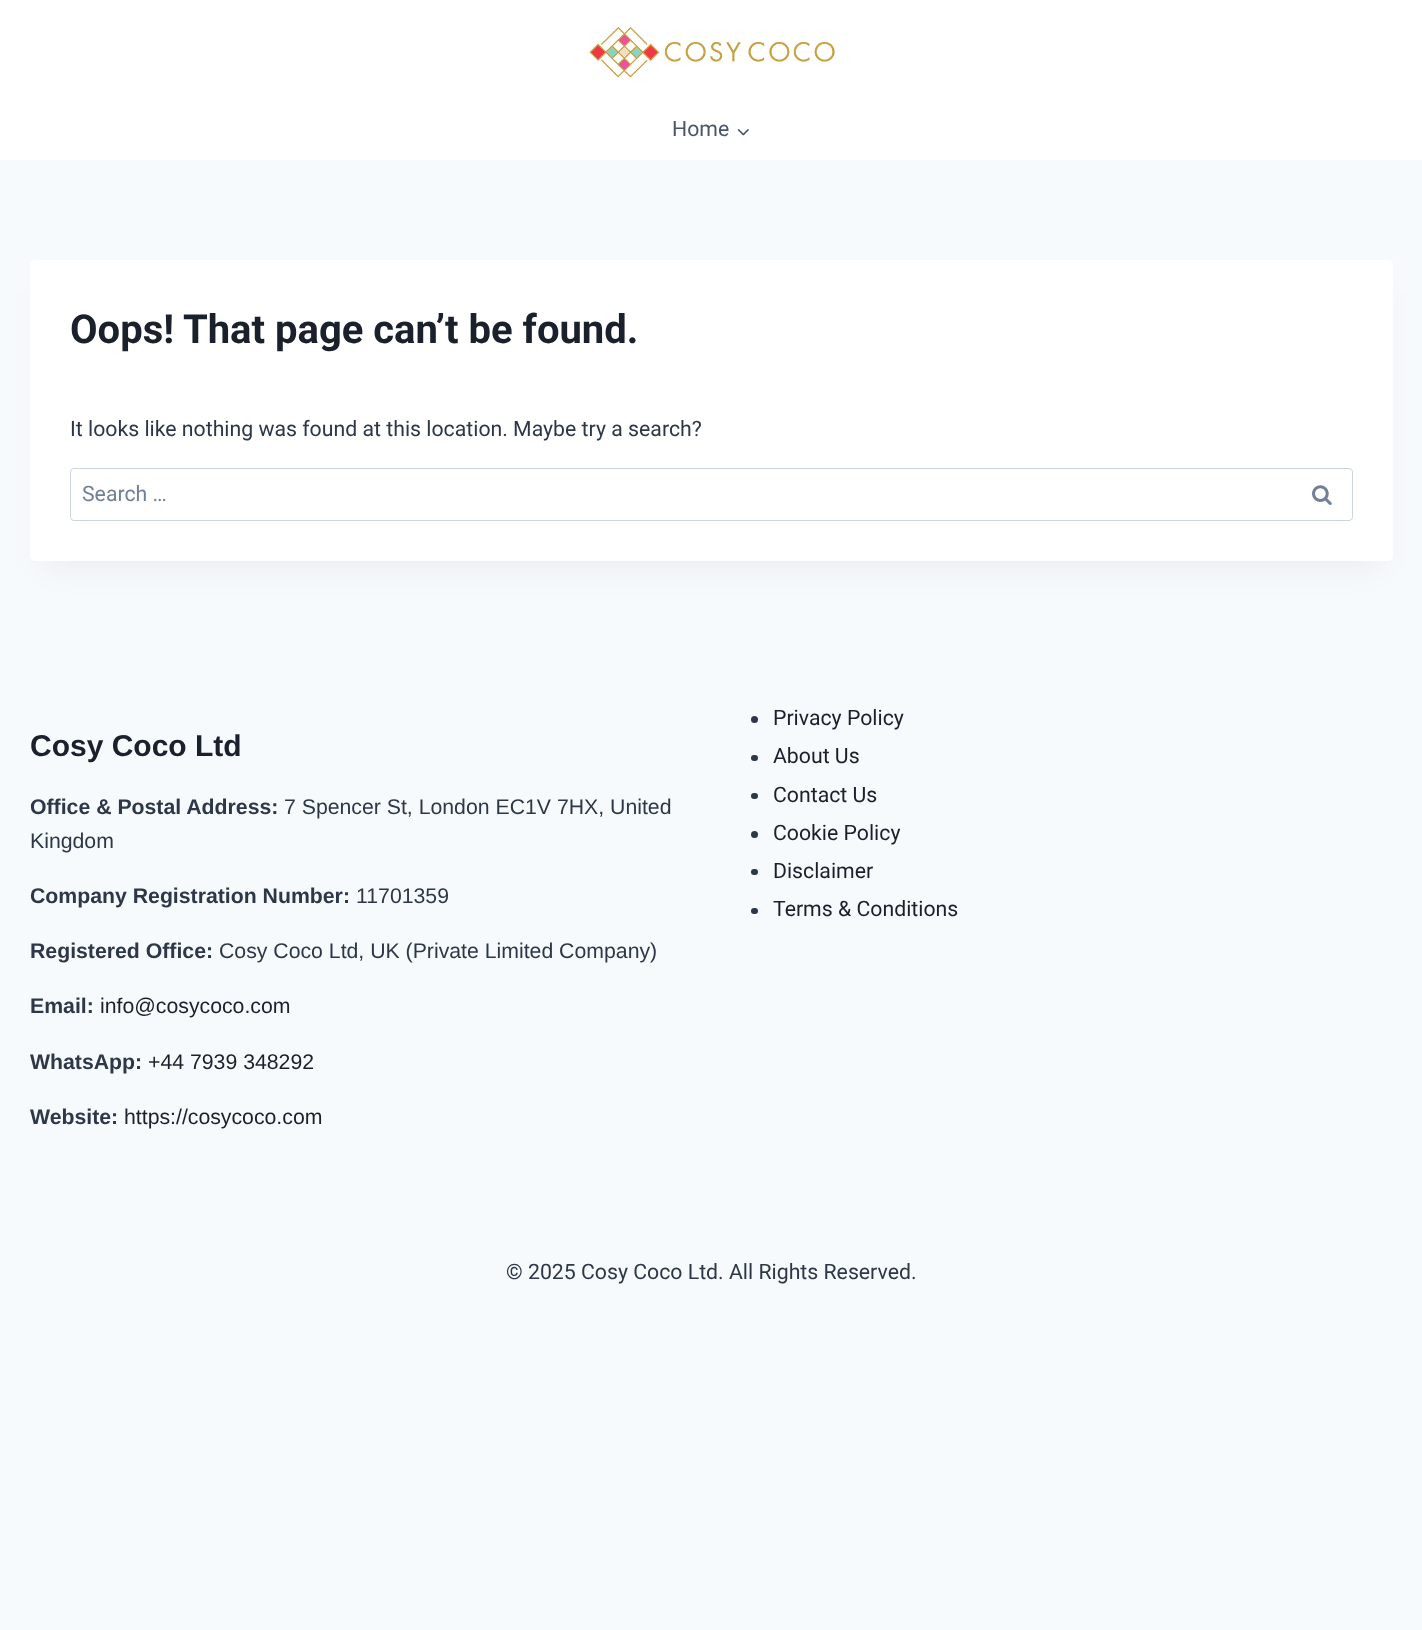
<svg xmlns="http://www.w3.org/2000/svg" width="1422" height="1630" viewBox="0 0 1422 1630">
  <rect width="100%" height="100%" fill="rgb(247,250,252)"/>
  <rect x="0" y="0" width="1422" height="160" fill="rgb(255,255,255)"/>
  <image x="589" y="27" width="246" height="51" href="pic1.png"/>
  <text x="672" y="136" font-family="Roboto" font-size="21.25" fill="rgb(74,85,104)">Home</text>
  <image x="737" y="129" width="12" height="7" href="pic2.png"/>
  <rect x="43" y="291" width="1337" height="277" fill="rgba(0,0,0,0.05)" filter="blur(15.5px)"/>
  <rect x="30" y="260" width="1363" height="301" rx="5" fill="rgb(255,255,255)"/>
  <text x="70" y="343" font-family="Roboto" font-size="40" font-weight="bold" fill="rgb(26,32,44)">Oops! That page can’t be found.</text>
  <text x="70" y="436" font-family="Roboto" font-size="21.25" fill="rgb(45,55,72)">It looks like nothing was found at this location. Maybe try a search?</text>
  <rect x="70.5" y="468.5" width="1282" height="52" rx="3.5" fill="none" stroke="rgb(203,213,224)"/>
  <text x="82" y="501" font-family="Roboto" font-size="21.25" fill="rgb(113,128,150)">Search …</text>
  <image x="1312" y="485" width="20" height="20" href="pic3.png"/>
  <text x="30" y="756" font-family="Liberation Sans" font-size="30" font-weight="bold" fill="rgb(26,32,44)">Cosy Coco Ltd</text>
  <text x="30" y="814" font-family="Liberation Sans" font-size="21.25" font-weight="bold" fill="rgb(45,55,72)">Office &amp; Postal Address:</text>
  <g font-family="Liberation Sans" font-size="21.25" fill="rgb(45,55,72)">
    <text x="284" y="814">7 Spencer St, London EC1V 7HX, United</text>
    <text x="30" y="848">Kingdom</text>
  </g>
  <text x="30" y="903" font-family="Liberation Sans" font-size="21.25" font-weight="bold" fill="rgb(45,55,72)">Company Registration Number:</text>
  <text x="356" y="903" font-family="Liberation Sans" font-size="21.25" fill="rgb(45,55,72)">11701359</text>
  <text x="30" y="958" font-family="Liberation Sans" font-size="21.25" font-weight="bold" fill="rgb(45,55,72)">Registered Office:</text>
  <text x="219" y="958" font-family="Liberation Sans" font-size="21.25" fill="rgb(45,55,72)">Cosy Coco Ltd, UK (Private Limited Company)</text>
  <text x="30" y="1013" font-family="Liberation Sans" font-size="21.25" font-weight="bold" fill="rgb(45,55,72)">Email:</text>
  <text x="100" y="1013" font-family="Liberation Sans" font-size="21.25" fill="rgb(26,32,44)">info@cosycoco.com</text>
  <text x="30" y="1069" font-family="Liberation Sans" font-size="21.25" font-weight="bold" fill="rgb(45,55,72)">WhatsApp:</text>
  <text x="148" y="1069" font-family="Liberation Sans" font-size="21.25" fill="rgb(26,32,44)">+44 7939 348292</text>
  <text x="30" y="1124" font-family="Liberation Sans" font-size="21.25" font-weight="bold" fill="rgb(45,55,72)">Website:</text>
  <text x="124" y="1124" font-family="Liberation Sans" font-size="21.25" fill="rgb(26,32,44)">https://cosycoco.com</text>
  <circle cx="754.5" cy="719.5" r="3.5" fill="rgb(45,55,72)"/>
  <text x="773" y="725" font-family="Roboto" font-size="21.25" fill="rgb(26,32,44)">Privacy Policy</text>
  <rect x="751" y="755" width="7" height="6" rx="3" fill="rgb(45,55,72)"/>
  <text x="773" y="763" font-family="Roboto" font-size="21.25" fill="rgb(26,32,44)">About Us</text>
  <rect x="751" y="793" width="7" height="6" rx="3" fill="rgb(45,55,72)"/>
  <text x="773" y="802" font-family="Roboto" font-size="21.25" fill="rgb(26,32,44)">Contact Us</text>
  <circle cx="754.5" cy="834.5" r="3.5" fill="rgb(45,55,72)"/>
  <text x="773" y="840" font-family="Roboto" font-size="21.25" fill="rgb(26,32,44)">Cookie Policy</text>
  <rect x="751" y="869" width="7" height="6" rx="3" fill="rgb(45,55,72)"/>
  <text x="773" y="878" font-family="Roboto" font-size="21.25" fill="rgb(26,32,44)">Disclaimer</text>
  <rect x="751" y="908" width="7" height="6" rx="3" fill="rgb(45,55,72)"/>
  <text x="773" y="916" font-family="Roboto" font-size="21.25" fill="rgb(26,32,44)">Terms &amp; Conditions</text>
  <text x="506" y="1279" font-family="Roboto" font-size="21.25" fill="rgb(45,55,72)">© 2025 Cosy Coco Ltd. All Rights Reserved.</text>
</svg>
